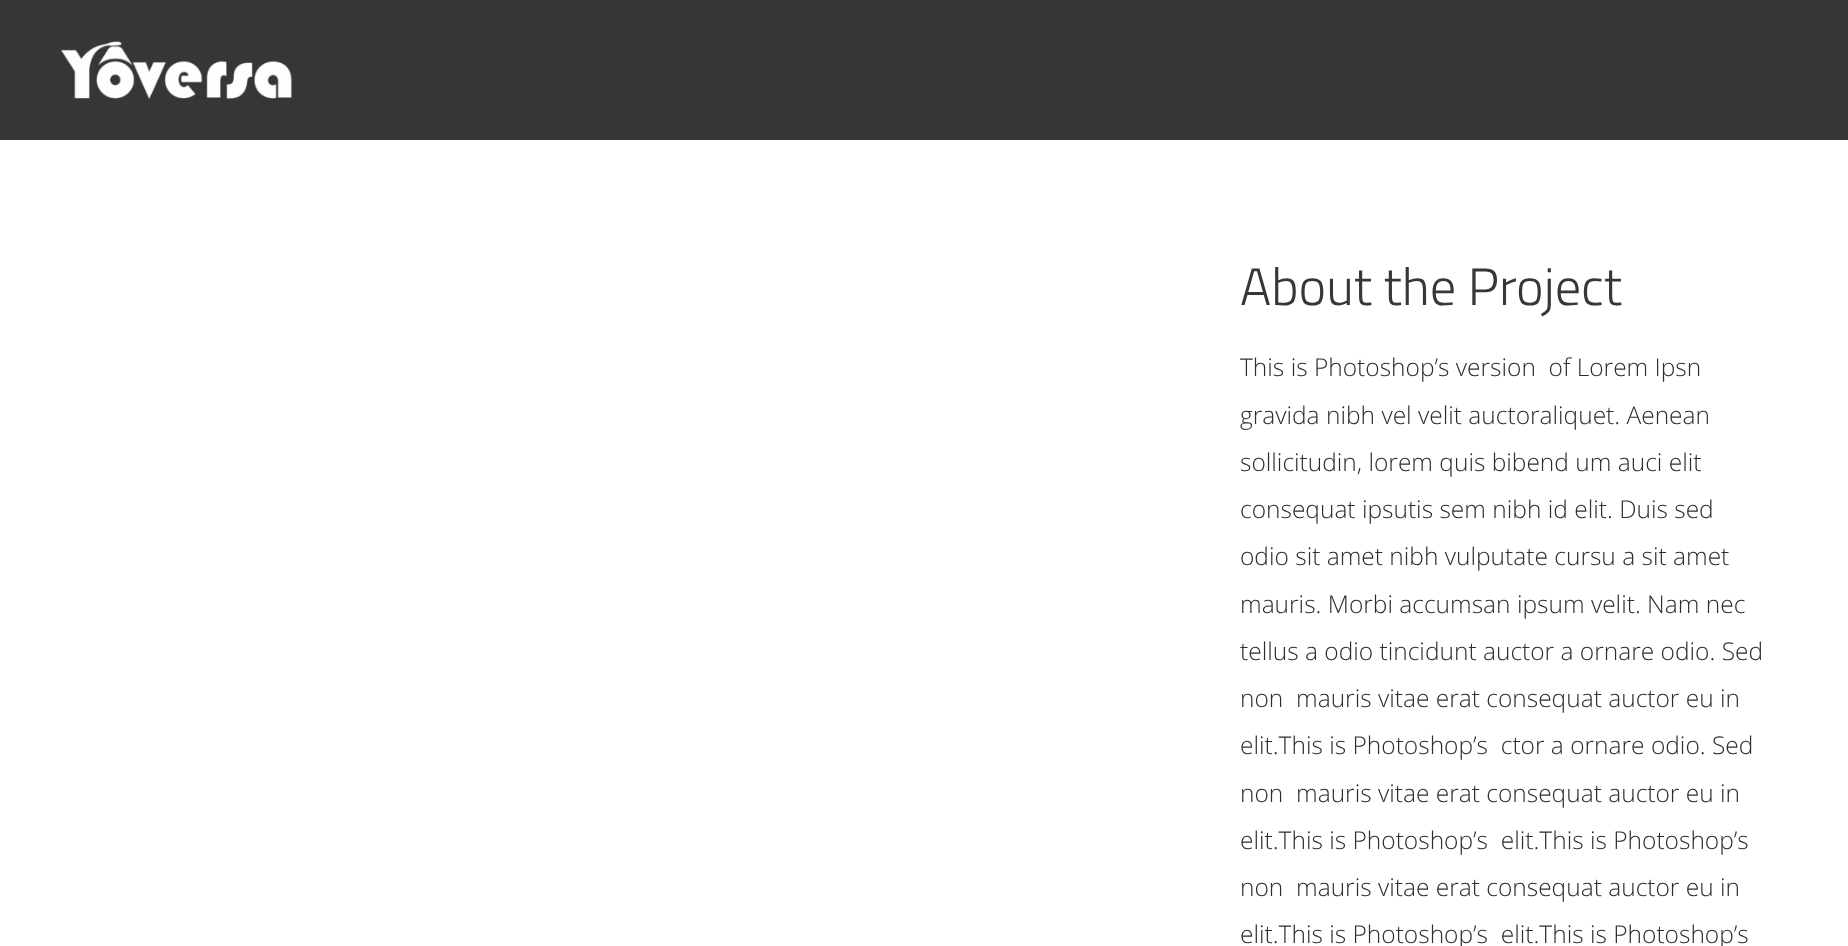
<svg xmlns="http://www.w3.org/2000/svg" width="1848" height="946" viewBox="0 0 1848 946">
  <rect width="100%" height="100%" fill="rgb(255,255,255)"/>
  <rect x="0" y="0" width="1848" height="140" fill="rgb(54,54,54)"/>
  <image x="60" y="41" width="233" height="58" href="pic1.png"/>
  <text x="1240" y="305" font-family="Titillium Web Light" font-size="52.5" font-weight="300" fill="rgb(55,55,55)">About the Project</text>
  <g font-family="Open Sans" font-size="24.5" font-weight="300" fill="rgb(45,45,45)">
    <text xml:space="preserve"><tspan x="1240" y="376">This is Photoshop’s version  of Lorem Ipsn</tspan><tspan x="1240" y="424">gravida nibh vel velit auctoraliquet. Aenean</tspan><tspan x="1240" y="471">sollicitudin, lorem quis bibend um auci elit</tspan><tspan x="1240" y="518">consequat ipsutis sem nibh id elit. Duis sed</tspan><tspan x="1240" y="565">odio sit amet nibh vulputate cursu a sit amet</tspan><tspan x="1240" y="613">mauris. Morbi accumsan ipsum velit. Nam nec</tspan><tspan x="1240" y="660">tellus a odio tincidunt auctor a ornare odio. Sed</tspan><tspan x="1240" y="707">non  mauris vitae erat consequat auctor eu in</tspan><tspan x="1240" y="754">elit.This is Photoshop’s  ctor a ornare odio. Sed</tspan><tspan x="1240" y="802">non  mauris vitae erat consequat auctor eu in</tspan><tspan x="1240" y="849">elit.This is Photoshop’s  elit.This is Photoshop’s</tspan><tspan x="1240" y="896">non  mauris vitae erat consequat auctor eu in</tspan><tspan x="1240" y="943">elit.This is Photoshop’s  elit.This is Photoshop’s</tspan></text>
  </g>
</svg>
